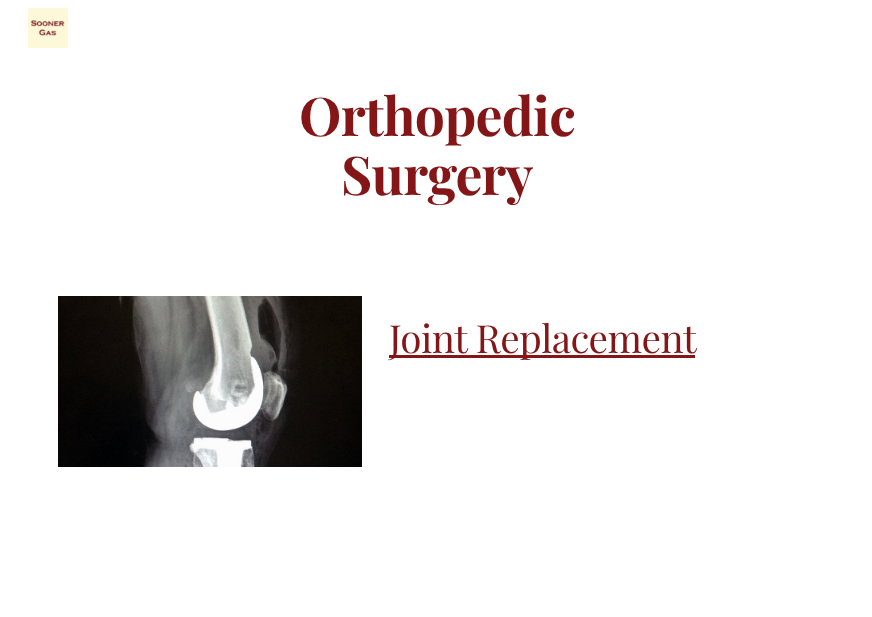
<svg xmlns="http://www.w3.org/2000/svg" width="872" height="617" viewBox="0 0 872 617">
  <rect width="100%" height="100%" fill="rgb(255,255,255)"/>
  <image x="27" y="7" width="42" height="41" href="pic1.png"/>
  <g font-family="Playfair Display" font-size="53.5" font-weight="bold" letter-spacing="-0.75" fill="rgb(132,22,23)">
    <text x="299" y="136">Orthopedic</text>
    <text x="341" y="195">Surgery</text>
  </g>
  <image x="58" y="296" width="304" height="171" href="pic2.png"/>
  <rect x="389" y="355" width="306" height="3" fill="rgb(132,22,23)"/>
  <text x="389" y="353" font-family="Playfair Display" font-size="38.75" letter-spacing="-0.6" fill="rgb(132,22,23)">Joint Replacement</text>
</svg>
